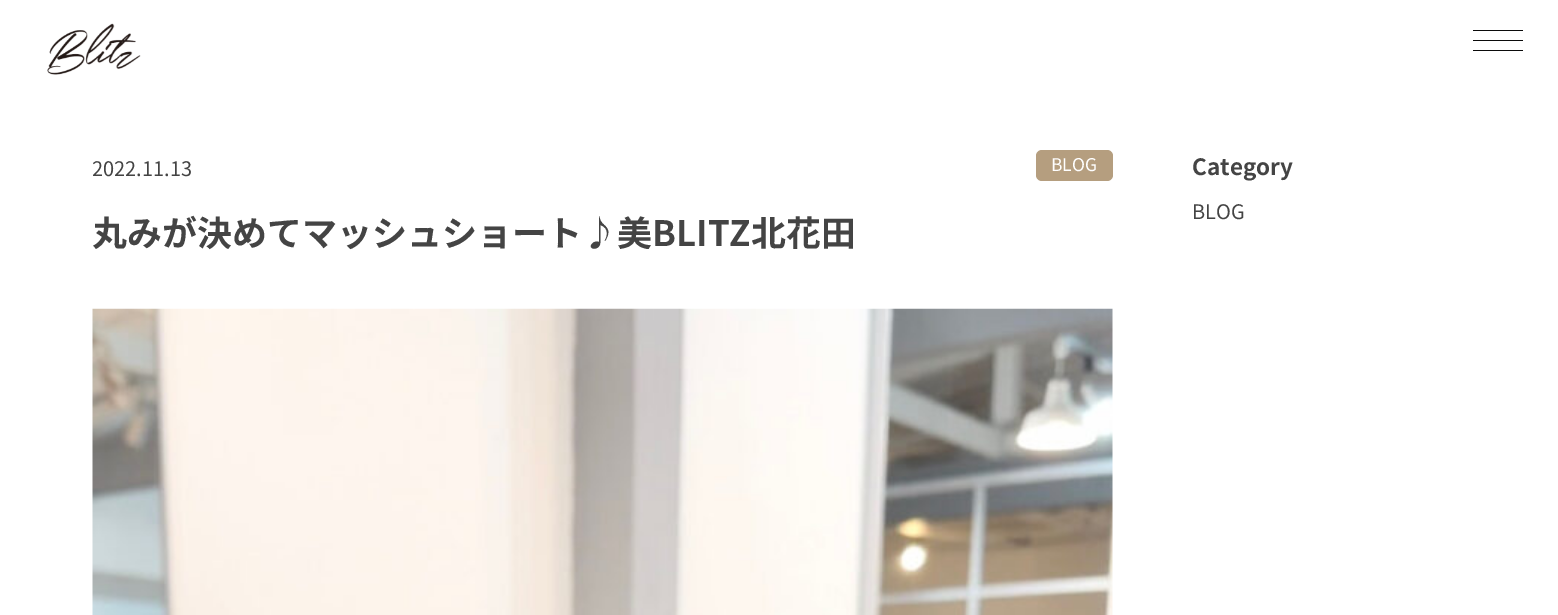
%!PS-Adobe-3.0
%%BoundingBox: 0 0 1558 615
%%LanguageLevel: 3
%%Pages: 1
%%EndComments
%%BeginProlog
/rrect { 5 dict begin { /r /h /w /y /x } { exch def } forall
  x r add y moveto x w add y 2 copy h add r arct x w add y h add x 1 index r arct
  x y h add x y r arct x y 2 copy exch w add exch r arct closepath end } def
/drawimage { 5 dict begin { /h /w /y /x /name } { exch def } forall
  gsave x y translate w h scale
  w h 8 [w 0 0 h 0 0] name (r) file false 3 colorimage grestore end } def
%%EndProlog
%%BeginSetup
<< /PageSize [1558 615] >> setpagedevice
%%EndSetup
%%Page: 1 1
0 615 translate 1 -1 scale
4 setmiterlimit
1 setgray
0 0 1558 615 rectfill
(images/1.raw) 47 23 94 52 drawimage
0.043 setgray
1473 40 50 1 rectfill
1473 30 50 1 rectfill
1473 50 50 1 rectfill
0.71 0.62 0.498 setrgbcolor
1036 150 77 31 6 rrect fill
(images/2.raw) 92 308 1021 307 drawimage
/NotoSansCJKJP-Regular [20 0 0 -20 0 0] selectfont
0.267 setgray
92 176 moveto (2022.11.13) show
/NotoSansCJKJP-Regular [17.5 0 0 -17.5 0 0] selectfont
1 setgray
1051 171 moveto (BLOG) show
/NotoSansCJKJP-Bold [35 0 0 -35 0 0] selectfont
0.267 setgray
92 246 moveto (丸みが決めてマッシュショート♪美BLITZ北花田) show
/NotoSansCJKJP-Bold [22.5 0 0 -22.5 0 0] selectfont
1192 175 moveto (Category) show
/NotoSansCJKJP-Regular [20 0 0 -20 0 0] selectfont
1192 219 moveto (BLOG) show
showpage
%%EOF
